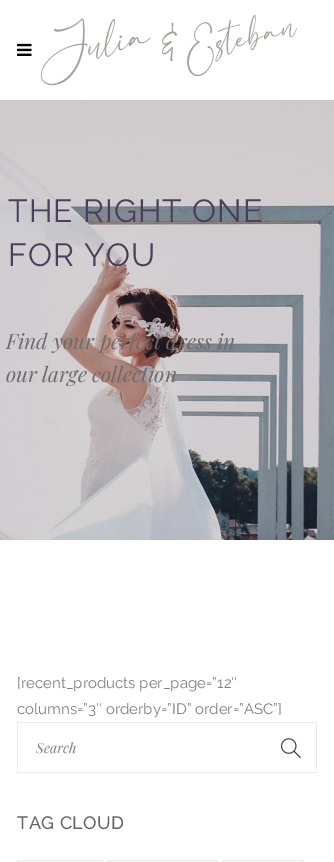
%!PS-Adobe-3.0
%%BoundingBox: 0 0 334 862
%%LanguageLevel: 3
%%Pages: 1
%%EndComments
%%BeginProlog
/drawimage { 5 dict begin { /h /w /y /x /name } { exch def } forall
  gsave x y translate w h scale
  w h 8 [w 0 0 h 0 0] name (r) file false 3 colorimage grestore end } def
%%EndProlog
%%BeginSetup
<< /PageSize [334 862] >> setpagedevice
%%EndSetup
%%Page: 1 1
0 862 translate 1 -1 scale
4 setmiterlimit
1 setgray
0 0 334 862 rectfill
(images/1.raw) 17 43 15 13 drawimage
(images/2.raw) 40 14 257 72 drawimage
(images/3.raw) 0 100 334 440 drawimage
0.922 setgray
17 722 300 1 rectfill
17 772 250 1 rectfill
17 722 1 51 rectfill
316 722 1 51 rectfill
266 772 51 1 rectfill
(images/4.raw) 281 738 20 21 drawimage
17.5 860.5 85 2 rectstroke
107.5 860.5 110 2 rectstroke
222.5 860.5 81 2 rectstroke
/Raleway-Thin [32 0 0 -32 0 0] selectfont
0.29 0.243 0.353 setrgbcolor
8 222 moveto 1 0 (THE RIGHT ONE) ashow
8 266 moveto 1 0 (FOR YOU) ashow
/PlayfairDisplay-Italic [21 0 0 -21 0 0] selectfont
0.427 0.42 0.42 setrgbcolor
6 349 moveto (Find your perfect dress in) show
6 382 moveto (our large collection) show
/Raleway-Thin [15 0 0 -15 0 0] selectfont
0.502 setgray
17 688 moveto ([recent_products per_page=”12″) show
17 714 moveto (columns=”3″ orderby=”ID” order=”ASC”]) show
/PlayfairDisplay-Italic [14 0 0 -14 0 0] selectfont
36 753 moveto (Search) show
/Raleway-Medium [18 0 0 -18 0 0] selectfont
0.396 setgray
17 829 moveto 0.5 0 (TAG CLOUD) ashow
showpage
%%EOF
